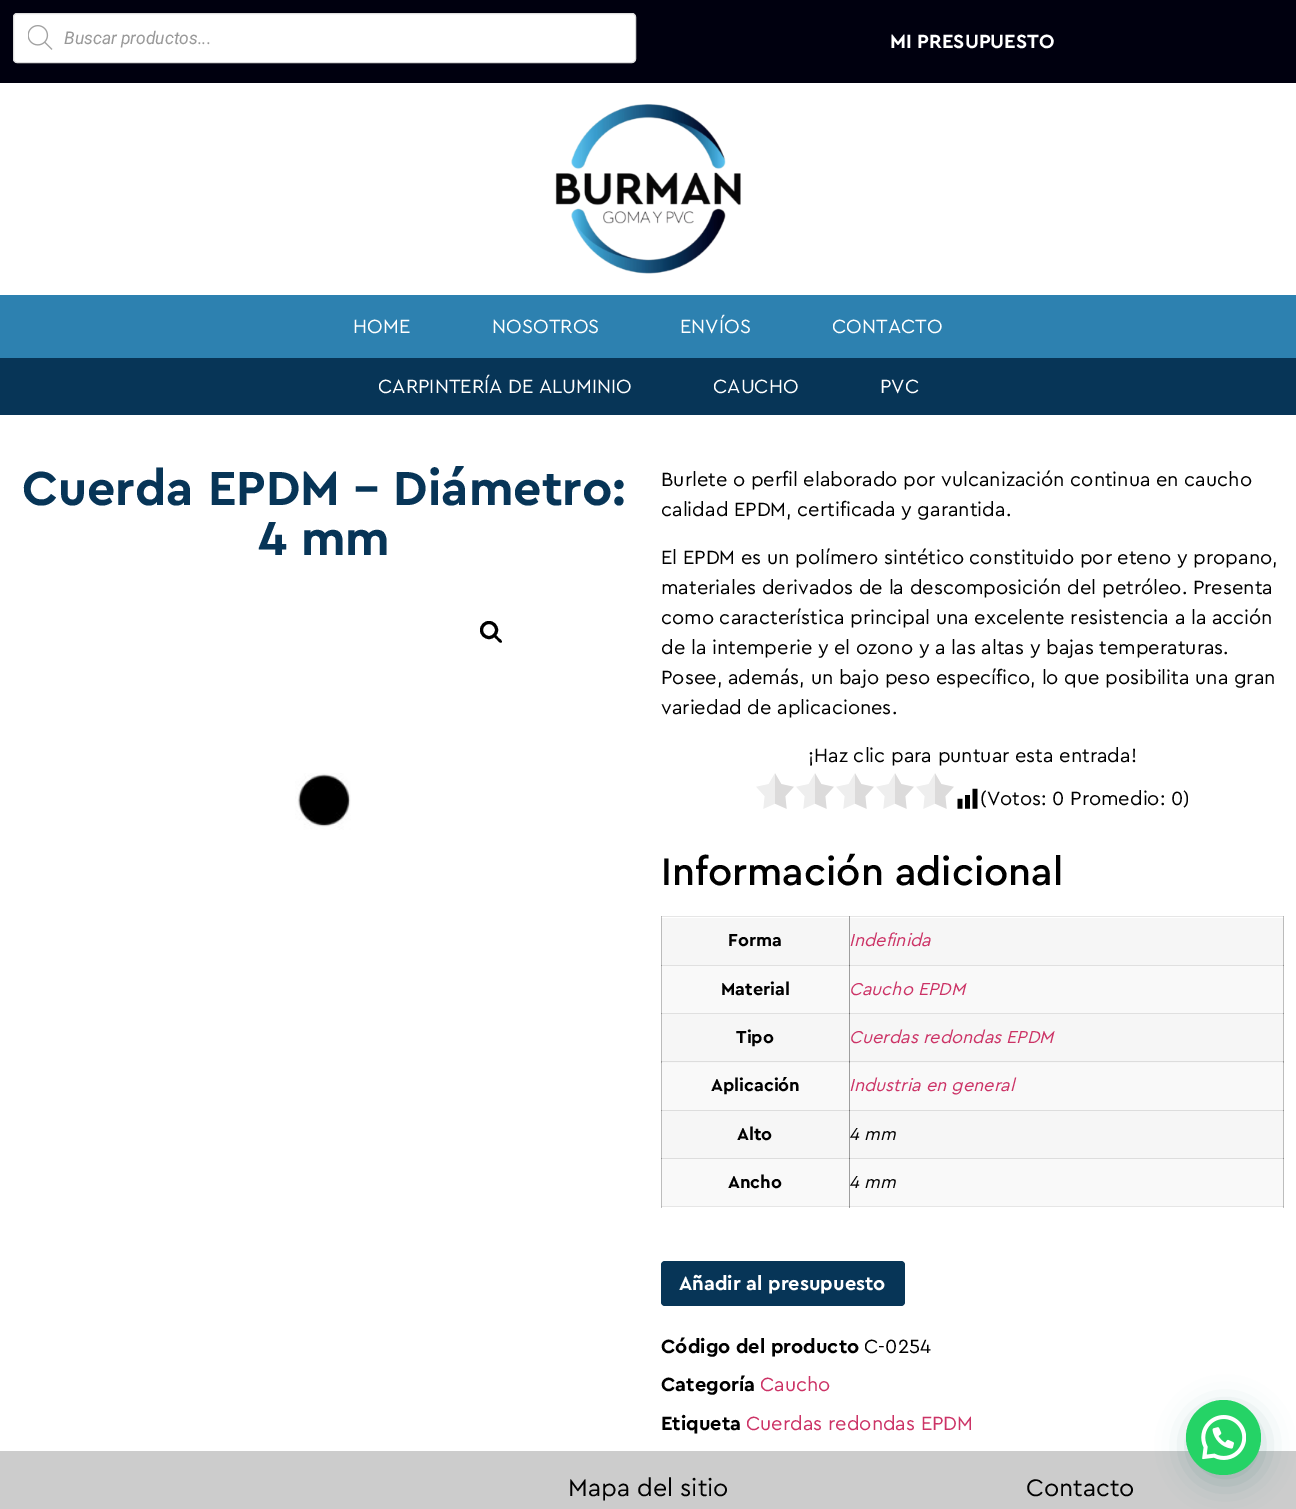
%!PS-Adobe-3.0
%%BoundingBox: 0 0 1296 1509
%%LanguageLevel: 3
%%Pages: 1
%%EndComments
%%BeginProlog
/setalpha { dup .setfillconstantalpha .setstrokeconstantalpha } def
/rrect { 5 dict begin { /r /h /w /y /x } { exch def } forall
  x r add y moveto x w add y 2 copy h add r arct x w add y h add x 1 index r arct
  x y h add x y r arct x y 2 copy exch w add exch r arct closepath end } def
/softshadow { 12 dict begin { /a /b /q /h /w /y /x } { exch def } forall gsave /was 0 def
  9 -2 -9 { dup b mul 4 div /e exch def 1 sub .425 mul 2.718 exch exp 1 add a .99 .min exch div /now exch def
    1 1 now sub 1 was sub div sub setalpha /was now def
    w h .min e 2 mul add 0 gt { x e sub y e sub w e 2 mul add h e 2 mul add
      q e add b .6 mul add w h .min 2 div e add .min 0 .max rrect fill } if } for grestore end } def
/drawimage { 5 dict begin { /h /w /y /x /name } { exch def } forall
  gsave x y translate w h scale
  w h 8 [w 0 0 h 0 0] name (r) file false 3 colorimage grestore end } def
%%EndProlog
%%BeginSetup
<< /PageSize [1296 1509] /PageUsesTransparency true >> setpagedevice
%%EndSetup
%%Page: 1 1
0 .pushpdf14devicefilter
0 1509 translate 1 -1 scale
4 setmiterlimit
1 setgray
0 0 1296 1509 rectfill
0.753 setgray
661 916 1 2 rectfill
0.627 setgray
849 916 1 2 rectfill
0.753 setgray
1283 916 1 2 rectfill
661 1207 1 1 rectfill
0.902 setgray
661 1206 623 1 rectfill
0.702 setgray
661 1206 1 1 rectfill
0.627 setgray
849 1207 1 1 rectfill
0.545 setgray
849 1206 1 1 rectfill
0.753 setgray
1283 1207 1 1 rectfill
0.678 setgray
1283 1206 1 1 rectfill
0 0 0.059 setrgbcolor
0 0 1296 83 rectfill
1 setgray
13.5 13.5 622 49 3.5 rrect gsave fill grestore
0.867 setgray
stroke
(images/1.raw) 28 25 25 25 drawimage
(images/2.raw) 555 104 186 170 drawimage
0.176 0.506 0.69 setrgbcolor
0 295 1296 63 rectfill
0.027 0.208 0.341 setrgbcolor
0 358 1296 57 rectfill
0 setgray
3 setlinewidth
newpath 489 630 7.5 0 360 arc closepath stroke
newpath 494.5 635 moveto 495.5 634 498 637 498.5 638 curveto 499.5 638.5 503 641 501.5 642.5 curveto 500 643.5 497.5 640.5 497 639.5 curveto 496 639 493 636.5 494.5 635 curveto closepath fill
(images/3.raw) 295 773 56 57 drawimage
(images/4.raw) 756 773 198 36 drawimage
(images/5.raw) 957 788 21 21 drawimage
0.902 setgray
661 916 623 1 rectfill
0.702 setgray
661 916 1 1 rectfill
0.604 setgray
849 916 1 1 rectfill
0.702 setgray
1283 916 1 1 rectfill
0.965 setgray
662 918 187 47 rectfill
0.733 setgray
661 918 1 47 rectfill
0.965 setgray
850 918 433 47 rectfill
0.62 setgray
849 918 1 47 rectfill
0.733 setgray
1283 918 1 47 rectfill
0.976 setgray
662 966 187 47 rectfill
0.878 setgray
661 965 623 1 rectfill
0.741 setgray
661 965 1 49 rectfill
0.584 setgray
661 965 1 1 rectfill
0.878 setgray
661 1013 188 1 rectfill
0.584 setgray
661 1013 1 1 rectfill
0.976 setgray
850 966 433 47 rectfill
0.624 setgray
849 965 1 49 rectfill
0.467 setgray
849 965 1 1 rectfill
0.878 setgray
849 1013 435 1 rectfill
0.741 setgray
1283 965 1 49 rectfill
0.561 setgray
1283 965 1 1 rectfill
0.467 setgray
849 1013 1 1 rectfill
0.561 setgray
1283 1013 1 1 rectfill
0.965 setgray
662 1014 187 49 rectfill
0.733 setgray
661 1014 1 49 rectfill
0.867 setgray
661 1061 188 1 rectfill
0.62 setgray
661 1061 1 2 rectfill
0.58 setgray
661 1061 1 1 rectfill
0.965 setgray
850 1014 433 49 rectfill
0.62 setgray
849 1014 1 49 rectfill
0.867 setgray
849 1061 435 1 rectfill
0.733 setgray
1283 1014 1 49 rectfill
0.533 setgray
849 1061 1 2 rectfill
0.467 setgray
849 1061 1 1 rectfill
0.62 setgray
1283 1061 1 2 rectfill
0.557 setgray
1283 1061 1 1 rectfill
0.976 setgray
662 1063 187 47 rectfill
0.741 setgray
661 1063 1 47 rectfill
0.976 setgray
850 1063 433 47 rectfill
0.624 setgray
849 1063 1 47 rectfill
0.741 setgray
1283 1063 1 47 rectfill
0.965 setgray
662 1111 187 47 rectfill
0.867 setgray
661 1110 623 1 rectfill
0.733 setgray
661 1110 1 49 rectfill
0.58 setgray
661 1110 1 1 rectfill
0.867 setgray
661 1158 188 1 rectfill
0.58 setgray
661 1158 1 1 rectfill
0.965 setgray
850 1111 433 47 rectfill
0.62 setgray
849 1110 1 49 rectfill
0.467 setgray
849 1110 1 1 rectfill
0.867 setgray
849 1158 435 1 rectfill
0.733 setgray
1283 1110 1 49 rectfill
0.557 setgray
1283 1110 1 1 rectfill
0.467 setgray
849 1158 1 1 rectfill
0.557 setgray
1283 1158 1 1 rectfill
0.976 setgray
662 1159 187 47 rectfill
0.741 setgray
661 1159 1 47 rectfill
0.976 setgray
850 1159 433 47 rectfill
0.624 setgray
849 1159 1 47 rectfill
0.741 setgray
1283 1159 1 47 rectfill
0.027 0.208 0.341 setrgbcolor
661 1261 244 45 4 rrect fill
0.8 setgray
0 1451 1296 58 rectfill
0.027 0.369 0.329 setrgbcolor
1188 1408 75 75 37.5 15 0.24 softshadow
0.145 0.827 0.4 setrgbcolor
newpath 1223.5 1437.5 37.5 0 360 arc closepath fill
(images/6.raw) 1201 1415 45 45 drawimage
/Roboto-Italic [17.5 0 0 -17.5 0 0] selectfont
0.6 setgray
64 44 moveto (Buscar productos...) show
/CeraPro-Bold [20 0 0 -20 0 0] selectfont
1 setgray
890 48 moveto (MI PRESUPUESTO) show
/CeraPro-Regular [20 0 0 -20 0 0] selectfont
353 333 moveto (HOME) show
492 333 moveto (NOSOTROS) show
680 333 moveto (ENVÍOS) show
832 333 moveto (CONTACTO) show
378 393 moveto (CARPINTERÍA DE ALUMINIO) show
713 393 moveto (CAUCHO) show
880 393 moveto (PVC) show
/CeraPro-Bold [50 0 0 -50 0 0] selectfont
0.027 0.208 0.341 setrgbcolor
22 505 moveto (Cuerda EPDM – Diámetro:) show
258 555 moveto (4 mm) show
/CeraPro-Regular [20 0 0 -20 0 0] selectfont
0 setgray
661 486 moveto (Burlete o perfil elaborado por vulcanización continua en caucho) show
661 516 moveto (calidad EPDM, certificada y garantida.) show
661 564 moveto (El EPDM es un polímero sintético constituido por eteno y propano,) show
661 594 moveto (materiales derivados de la descomposición del petróleo. Presenta) show
661 624 moveto (como característica principal una excelente resistencia a la acción) show
661 654 moveto (de la intemperie y el ozono y a las altas y bajas temperaturas.) show
661 684 moveto (Posee, además, un bajo peso específico, lo que posibilita una gran) show
661 714 moveto (variedad de aplicaciones.) show
808 762 moveto (¡Haz clic para puntuar esta entrada!) show
980 805 moveto (\(Votos: 0 Promedio: 0\)) show
/CeraPro-Medium [40 0 0 -40 0 0] selectfont
661 885 moveto (Información adicional) show
/CeraPro-Bold [18 0 0 -18 0 0] selectfont
728 946 moveto (Forma) show
/CeraPro-Italic [18 0 0 -18 0 0] selectfont
0.8 0.2 0.4 setrgbcolor
849 946 moveto (Indefinida) show
/CeraPro-Bold [18 0 0 -18 0 0] selectfont
0 setgray
721 995 moveto (Material) show
/CeraPro-Italic [18 0 0 -18 0 0] selectfont
0.8 0.2 0.4 setrgbcolor
849 995 moveto (Caucho EPDM) show
/CeraPro-Bold [18 0 0 -18 0 0] selectfont
0 setgray
736 1043 moveto (Tipo) show
/CeraPro-Italic [18 0 0 -18 0 0] selectfont
0.8 0.2 0.4 setrgbcolor
849 1043 moveto (Cuerdas redondas EPDM) show
/CeraPro-Bold [18 0 0 -18 0 0] selectfont
0 setgray
711 1091 moveto (Aplicación) show
/CeraPro-Italic [18 0 0 -18 0 0] selectfont
0.8 0.2 0.4 setrgbcolor
849 1091 moveto (Industria en general) show
/CeraPro-Bold [18 0 0 -18 0 0] selectfont
0 setgray
737 1140 moveto (Alto) show
/CeraPro-Italic [18 0 0 -18 0 0] selectfont
849 1140 moveto (4 mm) show
/CeraPro-Bold [18 0 0 -18 0 0] selectfont
728 1188 moveto (Ancho) show
/CeraPro-Italic [18 0 0 -18 0 0] selectfont
849 1188 moveto (4 mm) show
/CeraPro-Bold [20 0 0 -20 0 0] selectfont
1 setgray
679 1290 moveto (Añadir al presupuesto) show
0 setgray
661 1353 moveto (Código del producto) show
/CeraPro-Regular [20 0 0 -20 0 0] selectfont
864 1353 moveto (C-0254) show
/CeraPro-Bold [20 0 0 -20 0 0] selectfont
661 1391 moveto (Categoría) show
/CeraPro-Regular [20 0 0 -20 0 0] selectfont
0.8 0.2 0.4 setrgbcolor
760 1391 moveto (Caucho) show
/CeraPro-Bold [20 0 0 -20 0 0] selectfont
0 setgray
661 1430 moveto (Etiqueta) show
/CeraPro-Regular [20 0 0 -20 0 0] selectfont
0.8 0.2 0.4 setrgbcolor
746 1430 moveto (Cuerdas redondas EPDM) show
/CeraPro-Regular [25 0 0 -25 0 0] selectfont
0 setgray
568 1496 moveto (Mapa del sitio) show
1026 1496 moveto (Contacto) show
.poppdf14devicefilter showpage
%%EOF
